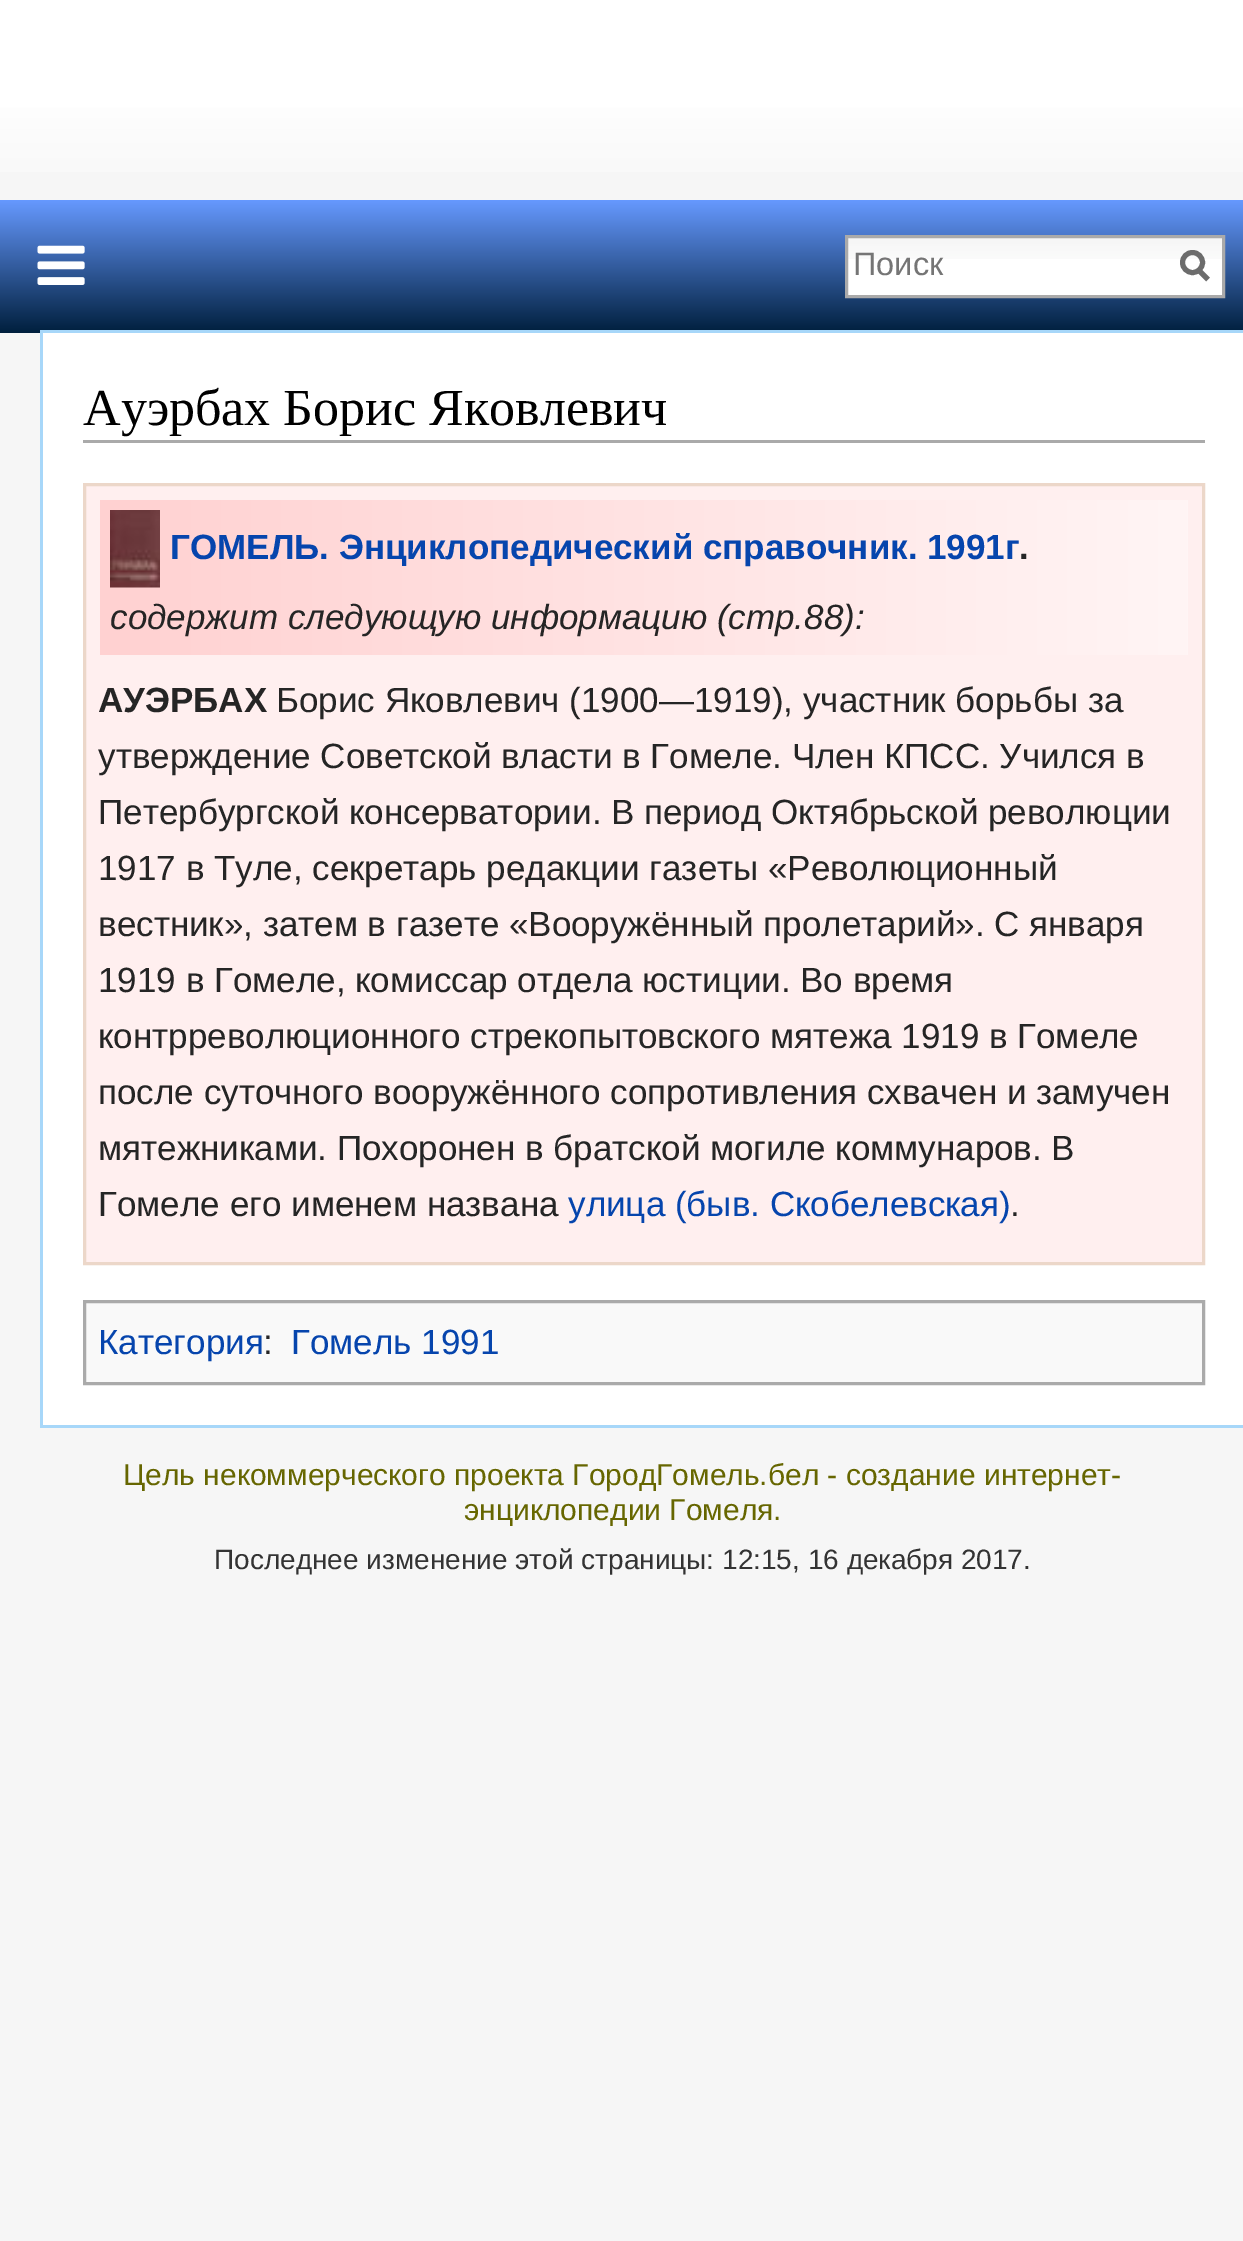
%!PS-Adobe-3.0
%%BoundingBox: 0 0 1243 2241
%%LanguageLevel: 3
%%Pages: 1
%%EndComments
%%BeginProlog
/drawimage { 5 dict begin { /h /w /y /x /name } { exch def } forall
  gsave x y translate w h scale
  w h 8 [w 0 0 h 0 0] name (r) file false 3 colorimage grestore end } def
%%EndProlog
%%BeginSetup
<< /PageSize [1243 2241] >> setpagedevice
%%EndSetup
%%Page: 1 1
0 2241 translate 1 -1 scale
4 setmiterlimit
0.965 setgray
0 0 1243 2241 rectfill
gsave newpath 0 0 moveto 1243 0 lineto 1243 172 lineto 0 172 lineto closepath clip newpath
<< /ShadingType 2 /ColorSpace /DeviceRGB /Coords [623 0 623 200] /Extend [true true] /Function << /FunctionType 3 /Domain [0 1] /Functions [<< /FunctionType 2 /Domain [0 1] /C0 [1 1 1] /C1 [1 1 1] /N 1 >> << /FunctionType 2 /Domain [0 1] /C0 [1 1 1] /C1 [0.965 0.965 0.965] /N 1 >>] /Bounds [0.5] /Encode [0 1 0 1] >> >> shfill grestore
gsave newpath 0 200 moveto 1243 200 lineto 1243 333 lineto 0 333 lineto closepath clip newpath
<< /ShadingType 2 /ColorSpace /DeviceRGB /Coords [623 200 623 333] /Extend [true true] /Function << /FunctionType 2 /Domain [0 1] /C0 [0.4 0.6 1] /C1 [0 0.122 0.239] /N 1 >> >> shfill grestore
(images/1.raw) 37 245 48 40 drawimage
1 setgray
848 259 374 36 rectfill
(images/2.raw) 848 238 374 21 drawimage
0.667 setgray
3 setlinewidth
846.5 236.5 377 60 rectstroke
0.424 setgray
5 setlinewidth
newpath 1208 279.5 moveto 1198 269.5 lineto stroke
newpath 1192.5 262.5 10 0 360 arc closepath stroke
1 setgray
43 333 1200 1092 rectfill
0.655 0.843 0.976 setrgbcolor
40 330 1203 3 rectfill
40 1425 1203 3 rectfill
40 330 3 1098 rectfill
0.667 setgray
83 440 1122 3 rectfill
1 0.937 0.937 setrgbcolor
newpath 84.5 484.5 moveto 1203.5 484.5 lineto 1203.5 1263.5 lineto 84.5 1263.5 lineto closepath gsave fill grestore
0.925 0.843 0.788 setrgbcolor
3 setlinewidth
stroke
gsave newpath 100 500 moveto 1188 500 lineto 1188 655 lineto 100 655 lineto closepath clip newpath
<< /ShadingType 2 /ColorSpace /DeviceRGB /Coords [100 578 1188 578] /Extend [true true] /Function << /FunctionType 2 /Domain [0 1] /C0 [1 0.82 0.82] /C1 [1 0.961 0.961] /N 1 >> >> shfill grestore
(images/3.raw) 110 510 50 78 drawimage
0.976 setgray
newpath 84.5 1301.5 moveto 1203.5 1301.5 lineto 1203.5 1383.5 lineto 84.5 1383.5 lineto closepath gsave fill grestore
0.667 setgray
stroke
/LiberationSans-Regular [32.5 0 0 -32.5 0 0] selectfont
0.459 setgray
853 275 moveto (Поиск) show
/LiberationSerif-Regular [52 0 0 -52 0 0] selectfont
0 setgray
83 425 moveto (Ауэрбах Борис Яковлевич) show
/LiberationSans-Bold [35 0 0 -35 0 0] selectfont
0.024 0.271 0.678 setrgbcolor
170 559 moveto (ГОМЕЛЬ. Энциклопедический справочник. 1991г) show
0.145 setgray
1019 559 moveto (.) show
/LiberationSans-Italic [35 0 0 -35 0 0] selectfont
110 629 moveto (cодержит следующую информацию \(стр.88\):) show
/LiberationSans-Bold [35 0 0 -35 0 0] selectfont
98 712 moveto (АУЭРБАХ) show
/LiberationSans-Regular [35 0 0 -35 0 0] selectfont
276 712 moveto (Борис Яковлевич \(1900—1919\), участник борьбы за) show
98 768 moveto (утверждение Советской власти в Гомеле. Член КПСС. Учился в) show
98 824 moveto (Петербургской консерватории. В период Октябрьской революции) show
98 880 moveto (1917 в Туле, секретарь редакции газеты «Революционный) show
98 936 moveto (вестник», затем в газете «Вооружённый пролетарий». С января) show
98 992 moveto (1919 в Гомеле, комиссар отдела юстиции. Во время) show
98 1048 moveto (контрреволюционного стрекопытовского мятежа 1919 в Гомеле) show
98 1104 moveto (после суточного вооружённого сопротивления схвачен и замучен) show
98 1160 moveto (мятежниками. Похоронен в братской могиле коммунаров. В) show
98 1216 moveto (Гомеле его именем названа) show
0.024 0.271 0.678 setrgbcolor
568 1216 moveto (улица \(быв. Скобелевская\)) show
0.145 setgray
1010 1216 moveto (.) show
0.024 0.271 0.678 setrgbcolor
98 1354 moveto (Категория) show
0.145 setgray
263 1354 moveto (:) show
0.024 0.271 0.678 setrgbcolor
291 1354 moveto (Гомель 1991) show
/LiberationSans-Regular [30 0 0 -30 0 0] selectfont
0.4 0.4 0 setrgbcolor
123 1485 moveto (Цель некоммерческого проекта ГородГомель.бел - создание интернет-) show
464 1520 moveto (энциклопедии Гомеля.) show
/LiberationSans-Regular [28 0 0 -28 0 0] selectfont
0.2 setgray
214 1569 moveto (Последнее изменение этой страницы: 12:15, 16 декабря 2017.) show
showpage
%%EOF
